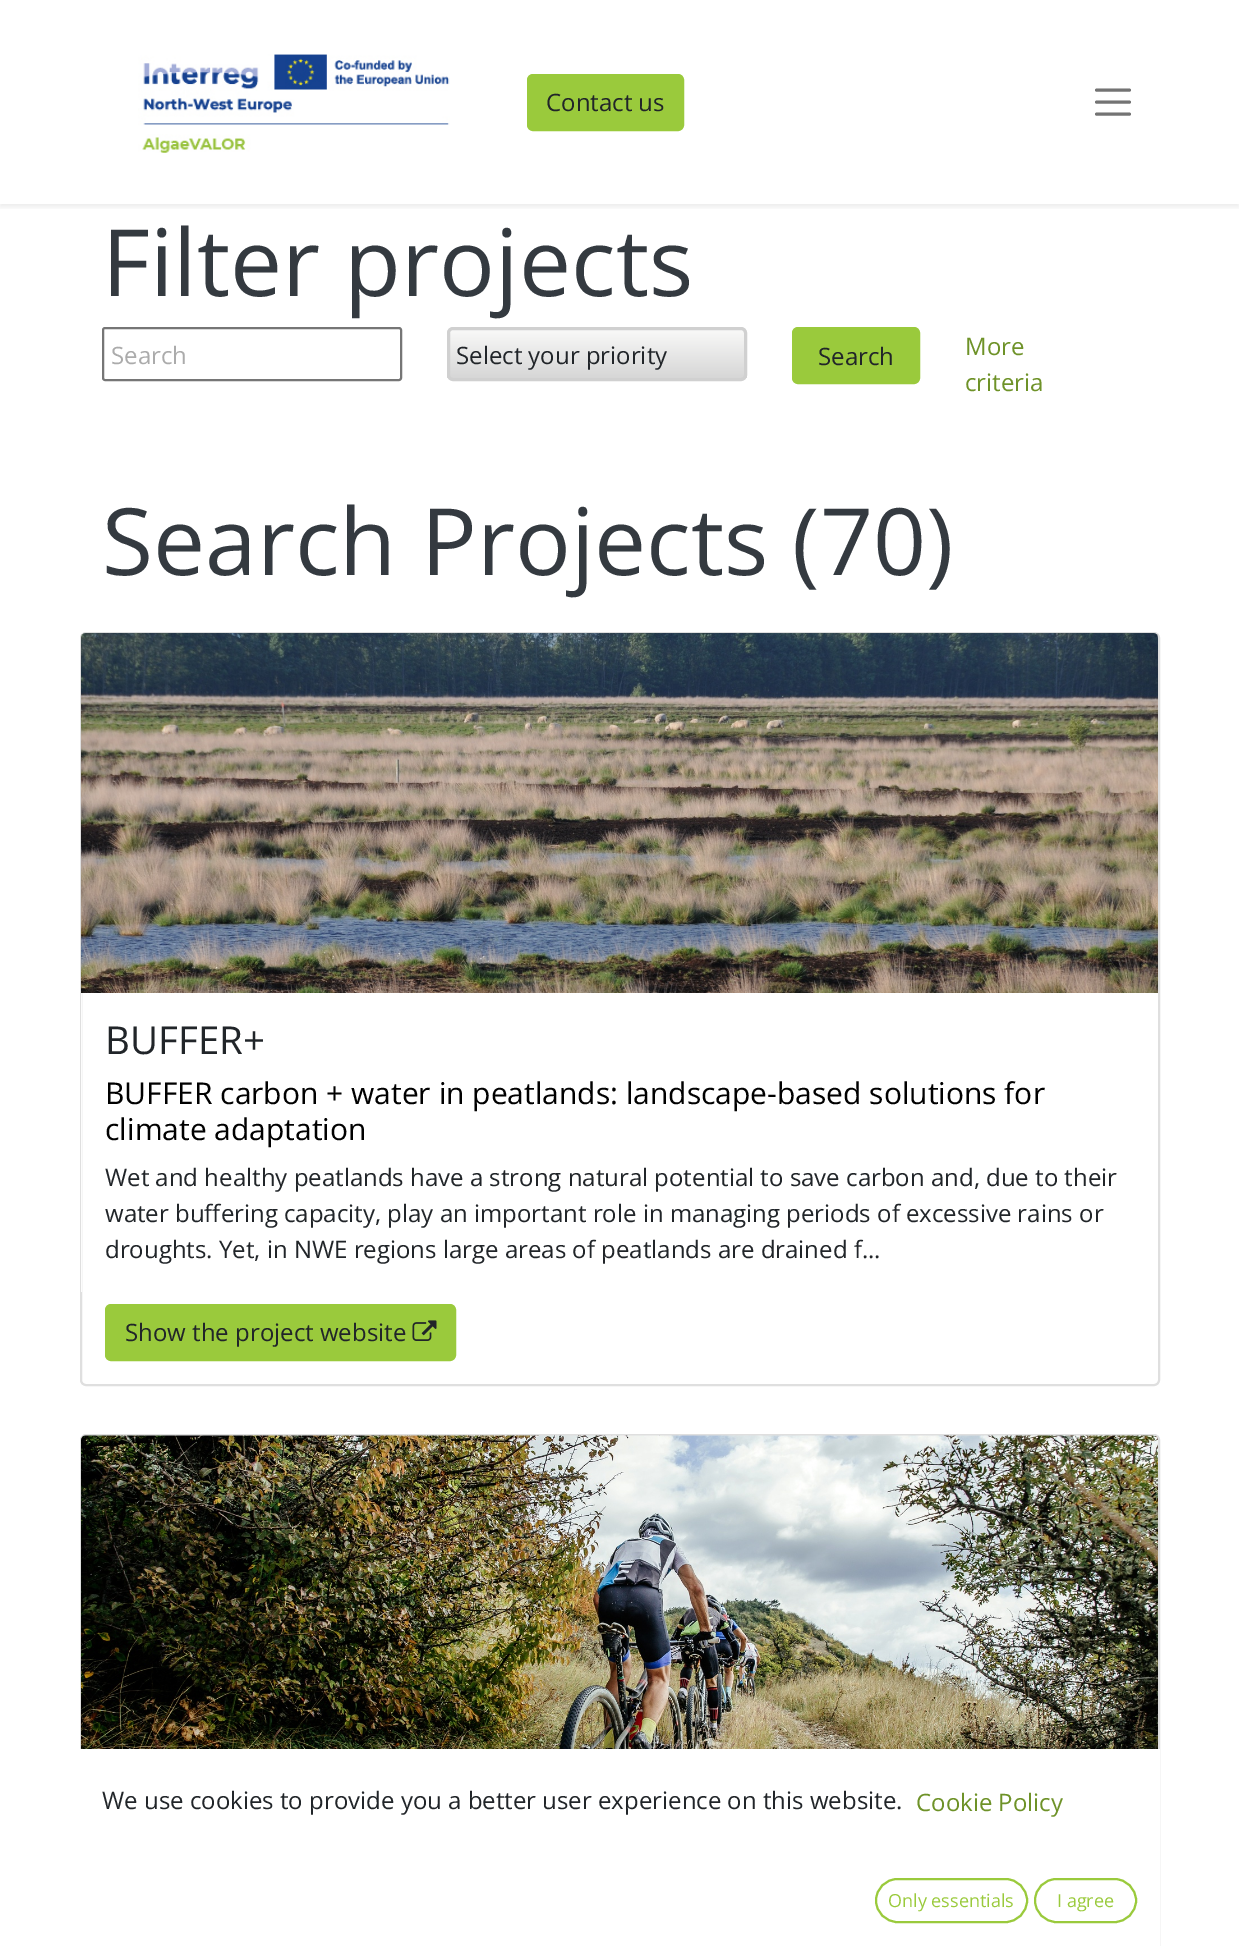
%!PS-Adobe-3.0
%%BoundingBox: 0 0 1239 1946
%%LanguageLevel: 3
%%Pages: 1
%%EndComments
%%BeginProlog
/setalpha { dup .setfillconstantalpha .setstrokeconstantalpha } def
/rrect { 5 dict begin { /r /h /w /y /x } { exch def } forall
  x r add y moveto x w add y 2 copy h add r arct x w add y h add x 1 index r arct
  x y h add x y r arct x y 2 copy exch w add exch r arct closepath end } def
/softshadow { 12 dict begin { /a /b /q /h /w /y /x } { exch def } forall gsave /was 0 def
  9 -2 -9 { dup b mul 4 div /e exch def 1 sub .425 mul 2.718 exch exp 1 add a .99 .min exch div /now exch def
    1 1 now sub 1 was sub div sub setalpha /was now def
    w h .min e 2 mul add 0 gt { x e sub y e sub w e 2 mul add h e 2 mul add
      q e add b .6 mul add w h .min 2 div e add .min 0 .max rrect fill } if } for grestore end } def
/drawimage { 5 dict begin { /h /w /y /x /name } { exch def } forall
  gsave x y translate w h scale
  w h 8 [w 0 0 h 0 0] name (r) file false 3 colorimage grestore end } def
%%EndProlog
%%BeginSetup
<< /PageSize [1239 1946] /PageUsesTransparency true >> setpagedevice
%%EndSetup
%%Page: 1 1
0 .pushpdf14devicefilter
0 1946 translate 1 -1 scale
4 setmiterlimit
1 setgray
0 0 1239 1946 rectfill
gsave
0 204 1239 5 rectclip
0 setgray
0 3 1239 204 0 3 0.07 softshadow
grestore
(images/1.raw) 138 54 312 99 drawimage
0.604 0.792 0.235 setrgbcolor
528 75 155 55 5 rrect gsave fill grestore
2 setlinewidth
stroke
0.451 setgray
3 setlinewidth
1 setlinecap
newpath 1096.5 90 moveto 1129.5 90 lineto 1096.5 102 moveto 1129.5 102 lineto 1096.5 114 moveto 1129.5 114 lineto stroke
0.463 setgray
2 setlinewidth
0 setlinecap
103 328 298 52 2 rrect stroke
gsave
447 327 300 54 6 rrect clip newpath
gsave newpath 447 330 moveto 747 330 lineto 747 378 lineto 447 378 lineto closepath clip newpath
<< /ShadingType 2 /ColorSpace /DeviceRGB /Coords [597 330 597 378] /Extend [true true] /Function << /FunctionType 2 /Domain [0 1] /C0 [0.976 0.976 0.973] /C1 [0.839 0.839 0.839] /N 1 >> >> shfill grestore
grestore
0.816 setgray
3 setlinewidth
448.5 328.5 297 51 4.5 rrect stroke
0.604 0.792 0.235 setrgbcolor
793 328 126 55 5 rrect gsave fill grestore
2 setlinewidth
stroke
0.875 setgray
81 633 1078 752 5 rrect stroke
(images/2.raw) 81 633 1077 360 drawimage
0.9 setalpha
1 setgray
81 993 1 299 rectfill
1 setalpha
0.604 0.792 0.235 setrgbcolor
106 1305 349 55 5 rrect gsave fill grestore
stroke
(images/3.raw) 412 1320 25 21 drawimage
0.875 setgray
81 1435 1078 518 5 rrect stroke
(images/4.raw) 81 1435 1077 314 drawimage
1 setgray
80 1749 1080 197 rectfill
0.604 0.792 0.235 setrgbcolor
876 1879 151 43 21.5 rrect stroke
1035 1879 101 43 21.5 rrect stroke
/OpenSans-Regular [24 0 0 -24 0 0] selectfont
0.129 0.145 0.161 setrgbcolor
546 111 moveto (Contact us) show
/OpenSans-Regular [93 0 0 -93 0 0] selectfont
0.204 0.227 0.251 setrgbcolor
102 296 moveto (Filter projects) show
/OpenSans-Regular [24 0 0 -24 0 0] selectfont
0.671 setgray
111 364 moveto (Search) show
0.129 0.145 0.161 setrgbcolor
456 364 moveto (Select your priority) show
818 365 moveto (Search) show
0.431 0.573 0.157 setrgbcolor
965 355 moveto (More) show
965 391 moveto (criteria) show
/OpenSans-Regular [93 0 0 -93 0 0] selectfont
0.204 0.227 0.251 setrgbcolor
102 575 moveto (Search Projects \(70\)) show
/OpenSans-Regular [38.5 0 0 -38.5 0 0] selectfont
0.129 0.145 0.161 setrgbcolor
105 1054 moveto (BUFFER+) show
/OpenSans-Regular [30 0 0 -30 0 0] selectfont
0 setgray
105 1104 moveto (BUFFER carbon + water in peatlands: landscape-based solutions for) show
105 1140 moveto (climate adaptation) show
/OpenSans-Regular [24 0 0 -24 0 0] selectfont
0.129 0.145 0.161 setrgbcolor
105 1186 moveto (Wet and healthy peatlands have a strong natural potential to save carbon and, due to their) show
105 1222 moveto (water buffering capacity, play an important role in managing periods of excessive rains or) show
105 1258 moveto (droughts. Yet, in NWE regions large areas of peatlands are drained f...) show
125 1341 moveto (Show the project website) show
102 1809 moveto (We use cookies to provide you a better user experience on this website.) show
0.431 0.573 0.157 setrgbcolor
916 1811 moveto (Cookie Policy) show
/OpenSans-Regular [18 0 0 -18 0 0] selectfont
0.604 0.792 0.235 setrgbcolor
888 1907 moveto (Only essentials) show
1057 1907 moveto (I agree) show
.poppdf14devicefilter showpage
%%EOF
